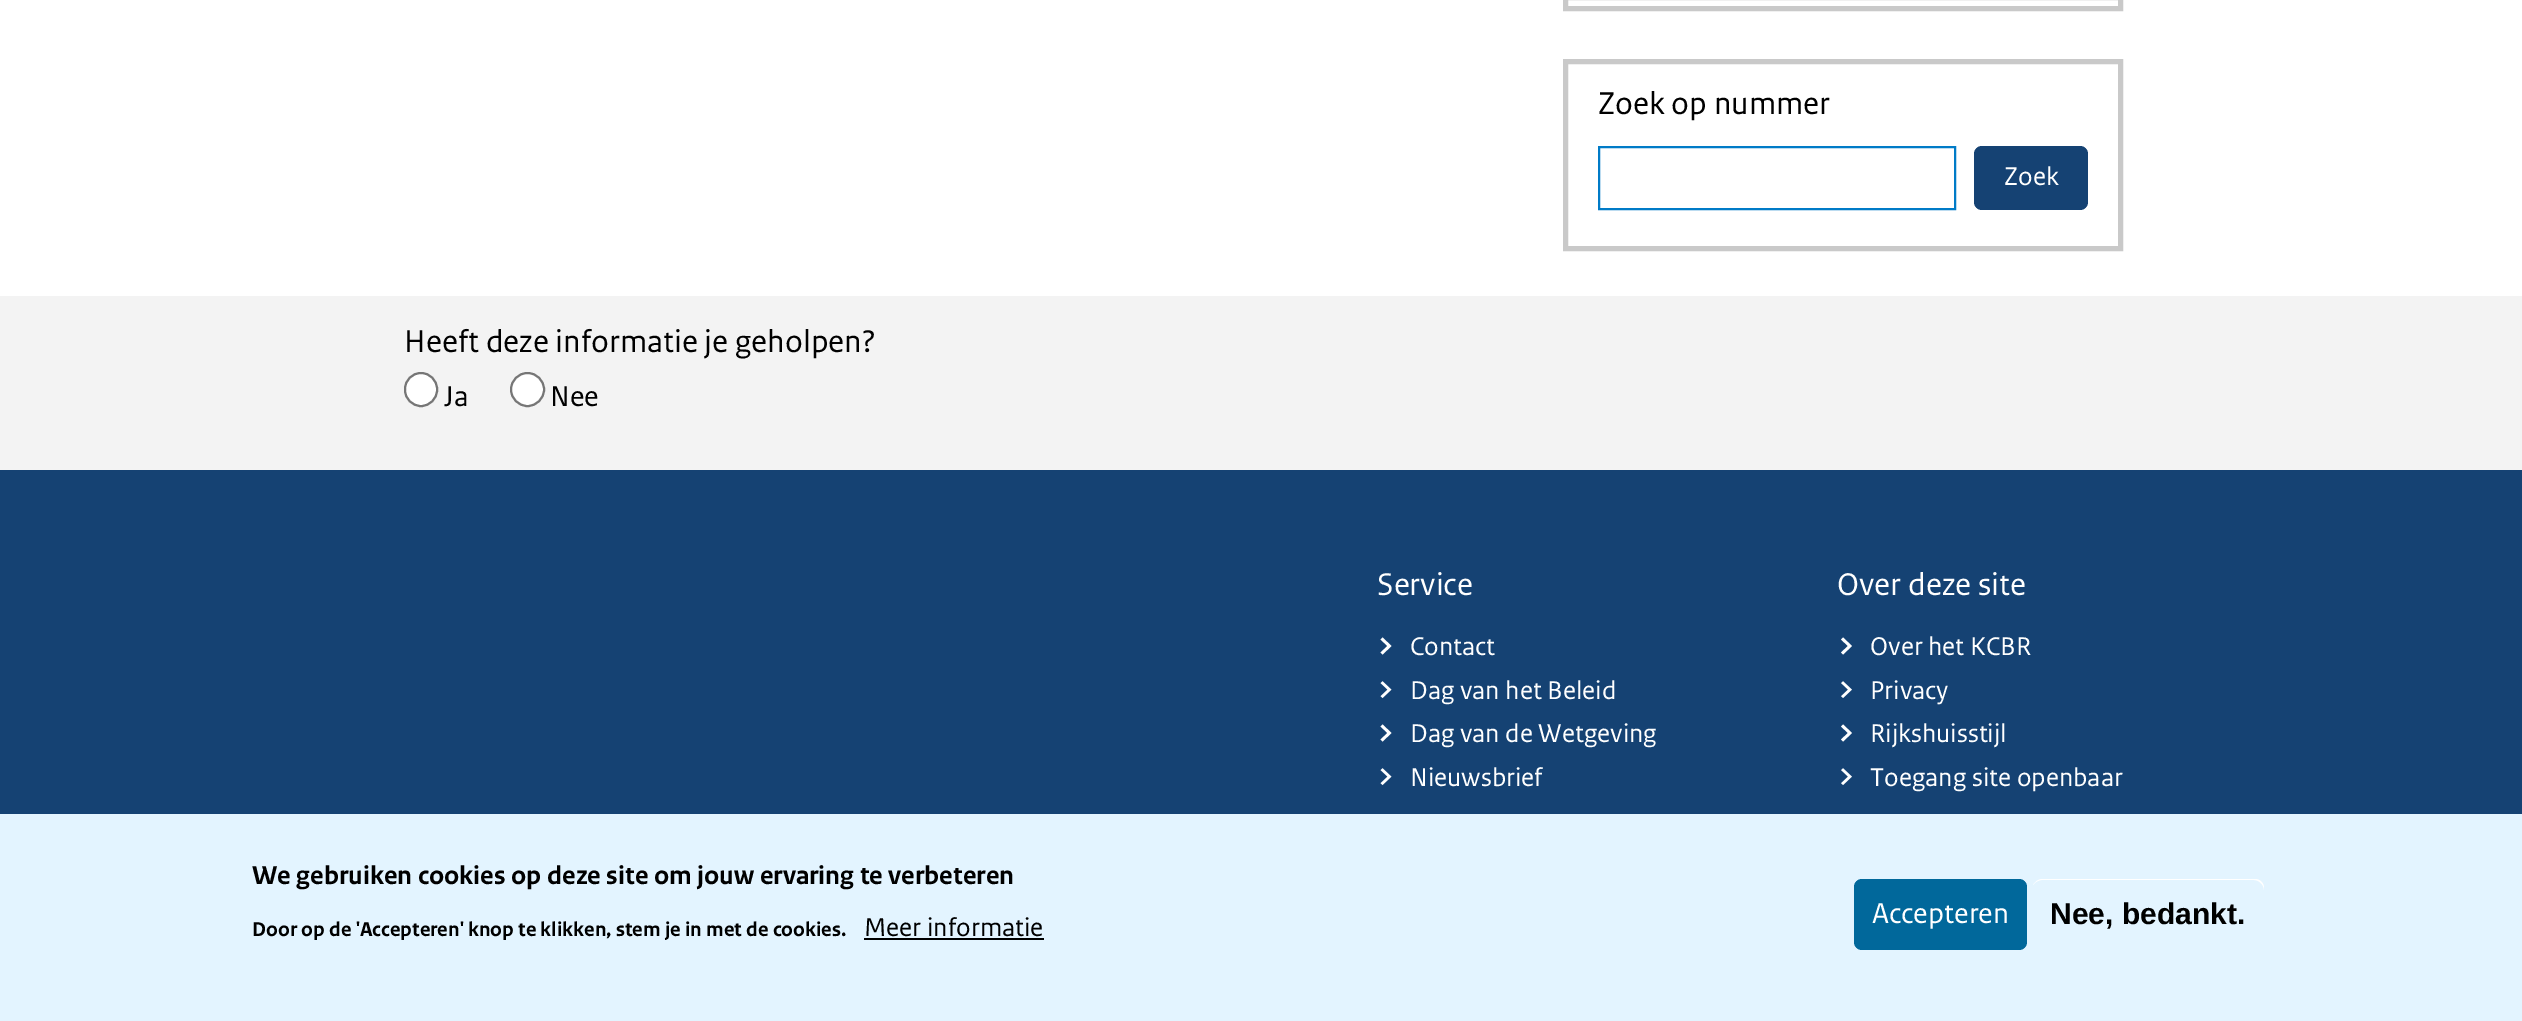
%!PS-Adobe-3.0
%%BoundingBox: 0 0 2522 1021
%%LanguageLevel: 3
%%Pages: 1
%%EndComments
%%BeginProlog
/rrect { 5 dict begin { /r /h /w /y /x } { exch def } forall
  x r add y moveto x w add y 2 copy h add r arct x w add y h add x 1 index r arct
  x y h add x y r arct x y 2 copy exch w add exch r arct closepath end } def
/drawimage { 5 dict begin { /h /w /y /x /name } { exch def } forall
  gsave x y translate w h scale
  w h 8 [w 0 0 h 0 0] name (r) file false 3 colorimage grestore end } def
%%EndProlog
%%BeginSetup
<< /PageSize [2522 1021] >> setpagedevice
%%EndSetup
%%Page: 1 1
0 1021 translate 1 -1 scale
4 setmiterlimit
1 setgray
0 0 2522 1021 rectfill
0.788 setgray
5 setlinewidth
1565.5 -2.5 555 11 rectstroke
1565.5 61.5 555 187 rectstroke
0 0.482 0.78 setrgbcolor
2 setlinewidth
1599 147 356 62 rectstroke
0.082 0.259 0.451 setrgbcolor
1974 146 114 64 8 rrect fill
0.953 setgray
0 296 2522 174 rectfill
1 setgray
405 373 32 33 16 rrect gsave fill grestore
0.463 setgray
stroke
1 setgray
newpath 527.5 389.5 16.5 0 360 arc closepath gsave fill grestore
0.463 setgray
stroke
0.082 0.259 0.451 setrgbcolor
0 470 2522 344 rectfill
1 setgray
newpath 1382.5 637.5 moveto 1380.5 639.5 lineto 1387.5 646 lineto 1380.5 652.5 lineto 1382.5 654.5 lineto 1391.5 646 lineto closepath fill
(images/1.raw) 1380 681 12 18 drawimage
newpath 1382.5 724.5 moveto 1380.5 726.5 lineto 1387.5 733 lineto 1380.5 739.5 lineto 1382.5 741.5 lineto 1391.5 733 lineto closepath fill
(images/1.raw) 1380 768 12 18 drawimage
newpath 1843 637.5 moveto 1841 639.5 lineto 1848 646 lineto 1841 652.5 lineto 1843 654.5 lineto 1852 646 lineto closepath fill
(images/2.raw) 1841 681 11 17 drawimage
newpath 1843 724.5 moveto 1841 726.5 lineto 1848 733 lineto 1841 739.5 lineto 1843 741.5 lineto 1852 733 lineto closepath fill
(images/2.raw) 1841 768 11 17 drawimage
0.89 0.957 1 setrgbcolor
0 814 2522 207 rectfill
0 setgray
864 938 180 2 rectfill
0.004 0.408 0.608 setrgbcolor
1854 879 173 71 8 rrect fill
1 setgray
newpath 2042 880 moveto 2254 880 lineto 2259 880 2264 885 2264 890 curveto 2264 888 lineto 2264 883 2260 879 2255 879 curveto 2042 879 lineto 2038 879 2035 882 2033 885 curveto 2035 882 2039 880 2042 880 curveto closepath fill
/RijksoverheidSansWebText-Regular [33 0 0 -33 0 0] selectfont
0 setgray
1598 114 moveto (Zoek op nummer) show
/RijksoverheidSansWebText-Regular [27 0 0 -27 0 0] selectfont
1 setgray
2004 185 moveto (Zoek) show
/RijksoverheidSansWebText-Regular [33 0 0 -33 0 0] selectfont
0 setgray
404 352 moveto (Heeft deze informatie je geholpen?) show
/RijksoverheidSansWebText-Regular [30 0 0 -30 0 0] selectfont
444 406 moveto (Ja) show
550 406 moveto (Nee) show
/RijksoverheidSansWebText-Regular [33 0 0 -33 0 0] selectfont
1 setgray
1377 595 moveto (Service) show
/RijksoverheidSansWebText-Regular [27 0 0 -27 0 0] selectfont
1410 655 moveto (Contact) show
1410 699 moveto (Dag van het Beleid) show
1410 742 moveto (Dag van de Wetgeving) show
1410 786 moveto (Nieuwsbrief) show
/RijksoverheidSansWebText-Regular [33 0 0 -33 0 0] selectfont
1837 595 moveto (Over deze site) show
/RijksoverheidSansWebText-Regular [27 0 0 -27 0 0] selectfont
1870 655 moveto (Over het KCBR) show
1870 699 moveto (Privacy) show
1870 742 moveto (Rijkshuisstijl) show
1870 786 moveto (Toegang site openbaar) show
/RijksoverheidSansWebText-Bold [27 0 0 -27 0 0] selectfont
0 setgray
252 884 moveto (We gebruiken cookies op deze site om jouw ervaring te verbeteren) show
/RijksoverheidSansWebText-Bold [21 0 0 -21 0 0] selectfont
252 936 moveto (Door op de 'Accepteren' knop te klikken, stem je in met de cookies.) show
/RijksoverheidSansWebText-Regular [27 0 0 -27 0 0] selectfont
864 936 moveto (Meer informatie) show
/RijksoverheidSansWebText-Regular [30 0 0 -30 0 0] selectfont
1 setgray
1872 923 moveto (Accepteren) show
/LiberationSans-Bold [30 0 0 -30 0 0] selectfont
0 setgray
2050 924 moveto (Nee, bedankt.) show
showpage
%%EOF
